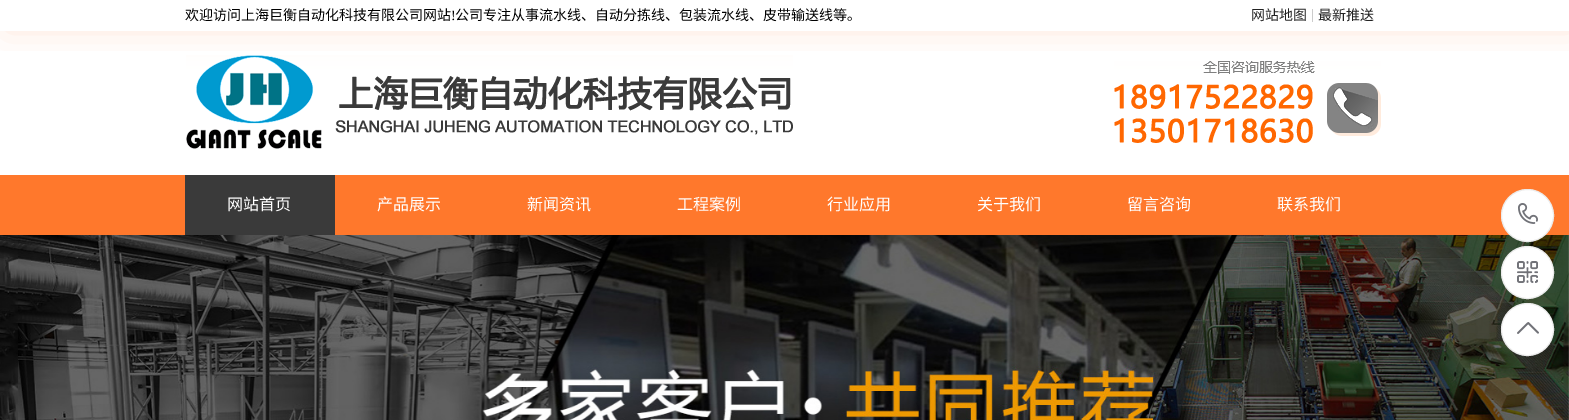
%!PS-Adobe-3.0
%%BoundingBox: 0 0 1569 420
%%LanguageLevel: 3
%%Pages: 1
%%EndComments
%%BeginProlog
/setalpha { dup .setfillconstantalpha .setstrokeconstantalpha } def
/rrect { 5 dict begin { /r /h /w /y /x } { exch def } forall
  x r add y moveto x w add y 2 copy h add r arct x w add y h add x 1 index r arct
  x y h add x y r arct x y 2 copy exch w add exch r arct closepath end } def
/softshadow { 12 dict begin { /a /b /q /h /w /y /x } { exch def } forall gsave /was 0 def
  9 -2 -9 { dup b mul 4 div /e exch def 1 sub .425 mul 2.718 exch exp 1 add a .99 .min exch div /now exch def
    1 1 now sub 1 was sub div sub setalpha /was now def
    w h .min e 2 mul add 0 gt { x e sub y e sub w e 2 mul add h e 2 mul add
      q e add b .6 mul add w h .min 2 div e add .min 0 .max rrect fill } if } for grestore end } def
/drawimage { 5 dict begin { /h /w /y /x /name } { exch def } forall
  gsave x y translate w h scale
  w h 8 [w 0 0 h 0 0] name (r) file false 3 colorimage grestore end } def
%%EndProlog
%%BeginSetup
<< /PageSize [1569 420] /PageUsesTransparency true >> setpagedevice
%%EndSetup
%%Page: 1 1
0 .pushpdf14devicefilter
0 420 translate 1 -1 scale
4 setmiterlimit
1 setgray
0 0 1569 420 rectfill
gsave
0 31 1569 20 rectclip
0.953 0.431 0.141 setrgbcolor
5 0 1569 31 0 17.5 0.16 softshadow
grestore
0.8 setgray
1312 9 1 13 rectfill
(images/1.raw) 186 55 607 94 drawimage
(images/2.raw) 1114 61 267 82 drawimage
1 0.471 0.173 setrgbcolor
0 175 1569 60 rectfill
0.227 setgray
185 175 150 60 rectfill
(images/6.raw) 0 235 1569 185 drawimage
1 setgray
newpath 1527.5 215.5 26 0 360 arc closepath gsave fill grestore
0.922 setgray
stroke
(images/3.raw) 1518 203 20 21 drawimage
1 setgray
newpath 1527.5 272.5 26 0 360 arc closepath gsave fill grestore
0.922 setgray
stroke
(images/4.raw) 1517 261 21 22 drawimage
1 setgray
newpath 1527.5 329.5 26 0 360 arc closepath gsave fill grestore
0.922 setgray
stroke
(images/5.raw) 1517 322 22 12 drawimage
/NotoSansCJKSC-Regular [14 0 0 -14 0 0] selectfont
0 setgray
185 20 moveto (欢迎访问上海巨衡自动化科技有限公司网站) show
/LiberationSerif-Regular [14 0 0 -14 0 0] selectfont
451 20 moveto (!) show
/NotoSansCJKSC-Regular [14 0 0 -14 0 0] selectfont
455 20 moveto (公司专注从事流水线、自动分拣线、包装流水线、皮带输送线等。) show
0.133 setgray
1251 20 moveto (网站地图) show
1318 20 moveto (最新推送) show
/NotoSansCJKSC-Regular [16 0 0 -16 0 0] selectfont
1 setgray
227 210 moveto (网站首页) show
377 210 moveto (产品展示) show
527 210 moveto (新闻资讯) show
677 210 moveto (工程案例) show
827 210 moveto (行业应用) show
977 210 moveto (关于我们) show
1127 210 moveto (留言咨询) show
1277 210 moveto (联系我们) show
.poppdf14devicefilter showpage
%%EOF
